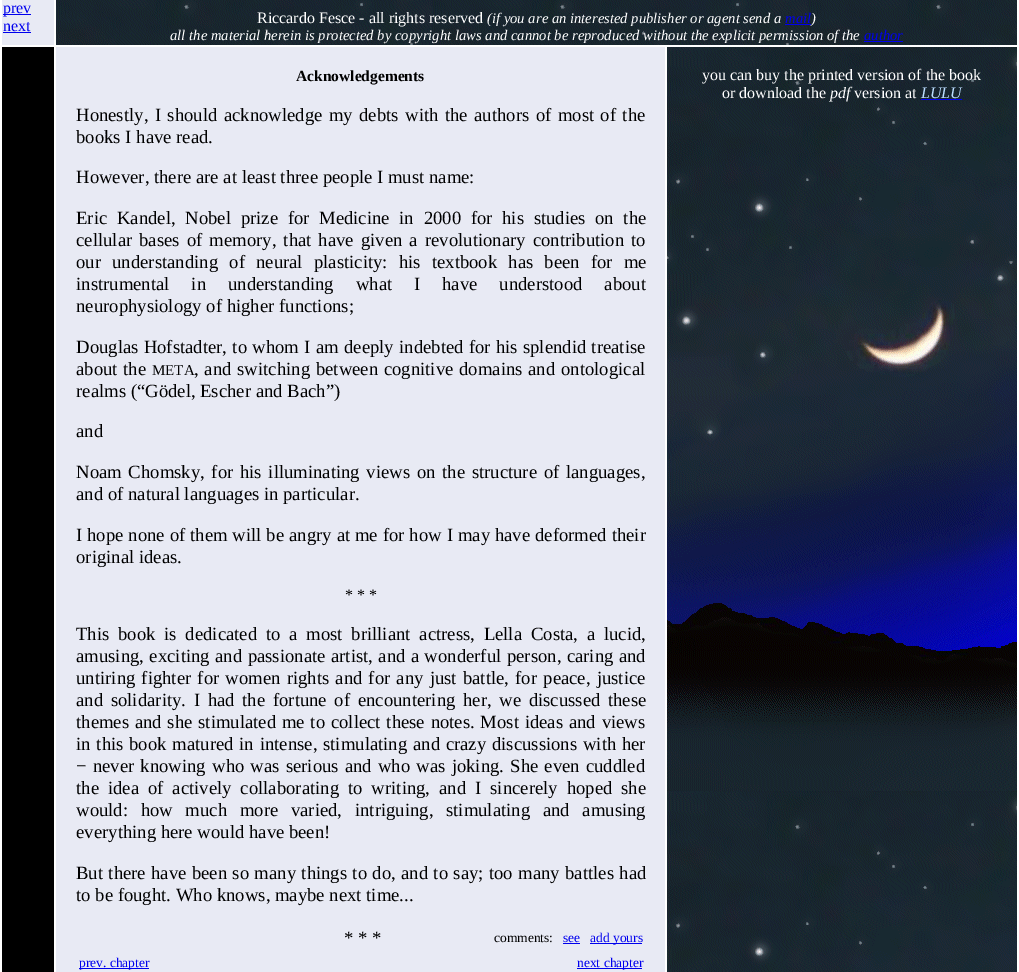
%!PS-Adobe-3.0
%%BoundingBox: 0 0 1019 972
%%LanguageLevel: 3
%%Pages: 1
%%EndComments
%%BeginProlog
/drawimage { 5 dict begin { /h /w /y /x /name } { exch def } forall
  gsave x y translate w h scale
  w h 8 [w 0 0 h 0 0] name (r) file false 3 colorimage grestore end } def
%%EndProlog
%%BeginSetup
<< /PageSize [1019 972] >> setpagedevice
%%EndSetup
%%Page: 1 1
0 972 translate 1 -1 scale
4 setmiterlimit
1 setgray
0 0 1019 972 rectfill
0.91 0.918 0.957 setrgbcolor
2 0 52 45 rectfill
0 0 0.933 setrgbcolor
3 14 28 1 rectfill
3 32 28 1 rectfill
(images/1.raw) 56 0 961 45 drawimage
785 24 26 1 rectfill
864 41 39 1 rectfill
0 setgray
2 47 52 925 rectfill
0.91 0.918 0.957 setrgbcolor
56 47 609 925 rectfill
0 0 0.933 setrgbcolor
563 943 17 1 rectfill
590 943 52 1 rectfill
79 968 70 1 rectfill
577 968 65 1 rectfill
(images/2.raw) 667 47 350 925 drawimage
921 99 41 1 rectfill
/LiberationSerif-Regular [16 0 0 -16 0 0] selectfont
3 13 moveto (prev) show
3 31 moveto (next) show
1 setgray
257 23 moveto (Riccardo Fesce - all rights reserved) show
/LiberationSerif-Italic [14.65 0 0 -14.65 0 0] selectfont
487 23 moveto (\(if you are an interested publisher or agent send a) show
0 0 0.933 setrgbcolor
785 23 moveto (mail) show
1 setgray
811 23 moveto (\)) show
170 40 moveto (all the material herein is protected by copyright laws and cannot be reproduced without the explicit permission of the) show
0 0 0.933 setrgbcolor
864 40 moveto (author) show
/LiberationSerif-Bold [15.5 0 0 -15.5 0 0] selectfont
0 setgray
296 81 moveto (Acknowledgements) show
/LiberationSerif-Regular [18.7 0 0 -18.7 0 0] selectfont
76 121 moveto 1.8 0 32 (Honestly, I should acknowledge my debts with the authors of most of the) widthshow
76 143 moveto (books I have read.) show
76 183 moveto (However, there are at least three people I must name:) show
76 224 moveto 5 0 32 (Eric Kandel, Nobel prize for Medicine in 2000 for his studies on the) widthshow
76 246 moveto 2.4 0 32 (cellular bases of memory, that have given a revolutionary contribution to) widthshow
76 268 moveto 6.5 0 32 (our understanding of neural plasticity: his textbook has been for me) widthshow
76 290 moveto 17.25 0 32 (instrumental in understanding what I have understood about) widthshow
76 312 moveto (neurophysiology of higher functions;) show
76 353 moveto 0.6 0 32 (Douglas Hofstadter, to whom I am deeply indebted for his splendid treatise) widthshow
76 375 moveto 1 0 32 (about the) widthshow
/LiberationSerif-Regular [15 0 0 -15 0 0] selectfont
152 375 moveto (META) show
/LiberationSerif-Regular [18.7 0 0 -18.7 0 0] selectfont
194 375 moveto 1.1 0 32 (, and switching between cognitive domains and ontological) widthshow
76 397 moveto (realms \(“Gödel, Escher and Bach”\)) show
76 437 moveto (and) show
76 478 moveto 2 0 32 (Noam Chomsky, for his illuminating views on the structure of languages,) widthshow
76 500 moveto (and of natural languages in particular.) show
76 541 moveto 0.25 0 32 (I hope none of them will be angry at me for how I may have deformed their) widthshow
76 563 moveto (original ideas.) show
/LiberationSerif-Regular [16 0 0 -16 0 0] selectfont
345 600 moveto (* * *) show
/LiberationSerif-Regular [18.7 0 0 -18.7 0 0] selectfont
76 640 moveto 4.1 0 32 (This book is dedicated to a most brilliant actress, Lella Costa, a lucid,) widthshow
76 662 moveto 0.75 0 32 (amusing, exciting and passionate artist, and a wonderful person, caring and) widthshow
76 684 moveto 1.5 0 32 (untiring fighter for women rights and for any just battle, for peace, justice) widthshow
76 706 moveto 3 0 32 (and solidarity. I had the fortune of encountering her, we discussed these) widthshow
76 728 moveto 1.1 0 32 (themes and she stimulated me to collect these notes. Most ideas and views) widthshow
76 750 moveto 1.1 0 32 (in this book matured in intense, stimulating and crazy discussions with her) widthshow
76 772 moveto 1.5 0 32 (− never knowing who was serious and who was joking. She even cuddled) widthshow
76 794 moveto 4.25 0 32 (the idea of actively collaborating to writing, and I sincerely hoped she) widthshow
76 816 moveto 8 0 32 (would: how much more varied, intriguing, stimulating and amusing) widthshow
76 838 moveto (everything here would have been!) show
76 879 moveto 0.7 0 32 (But there have been so many things to do, and to say; too many battles had) widthshow
76 901 moveto (to be fought. Who knows, maybe next time...) show
344 944 moveto (* * *) show
/LiberationSerif-Regular [13.5 0 0 -13.5 0 0] selectfont
494 942 moveto (comments:) show
0 0 0.933 setrgbcolor
563 942 moveto (see) show
590 942 moveto (add yours) show
79 967 moveto (prev. chapter) show
577 967 moveto (next chapter) show
/LiberationSerif-Regular [16 0 0 -16 0 0] selectfont
1 setgray
702 80 moveto (you can buy the printed version of the book) show
722 98 moveto (or download the) show
/LiberationSerif-Italic [16 0 0 -16 0 0] selectfont
830 98 moveto (pdf) show
/LiberationSerif-Regular [16 0 0 -16 0 0] selectfont
854 98 moveto (version at) show
/LiberationSerif-Italic [16 0 0 -16 0 0] selectfont
0.733 0.867 1 setrgbcolor
921 98 moveto (LULU) show
showpage
%%EOF
